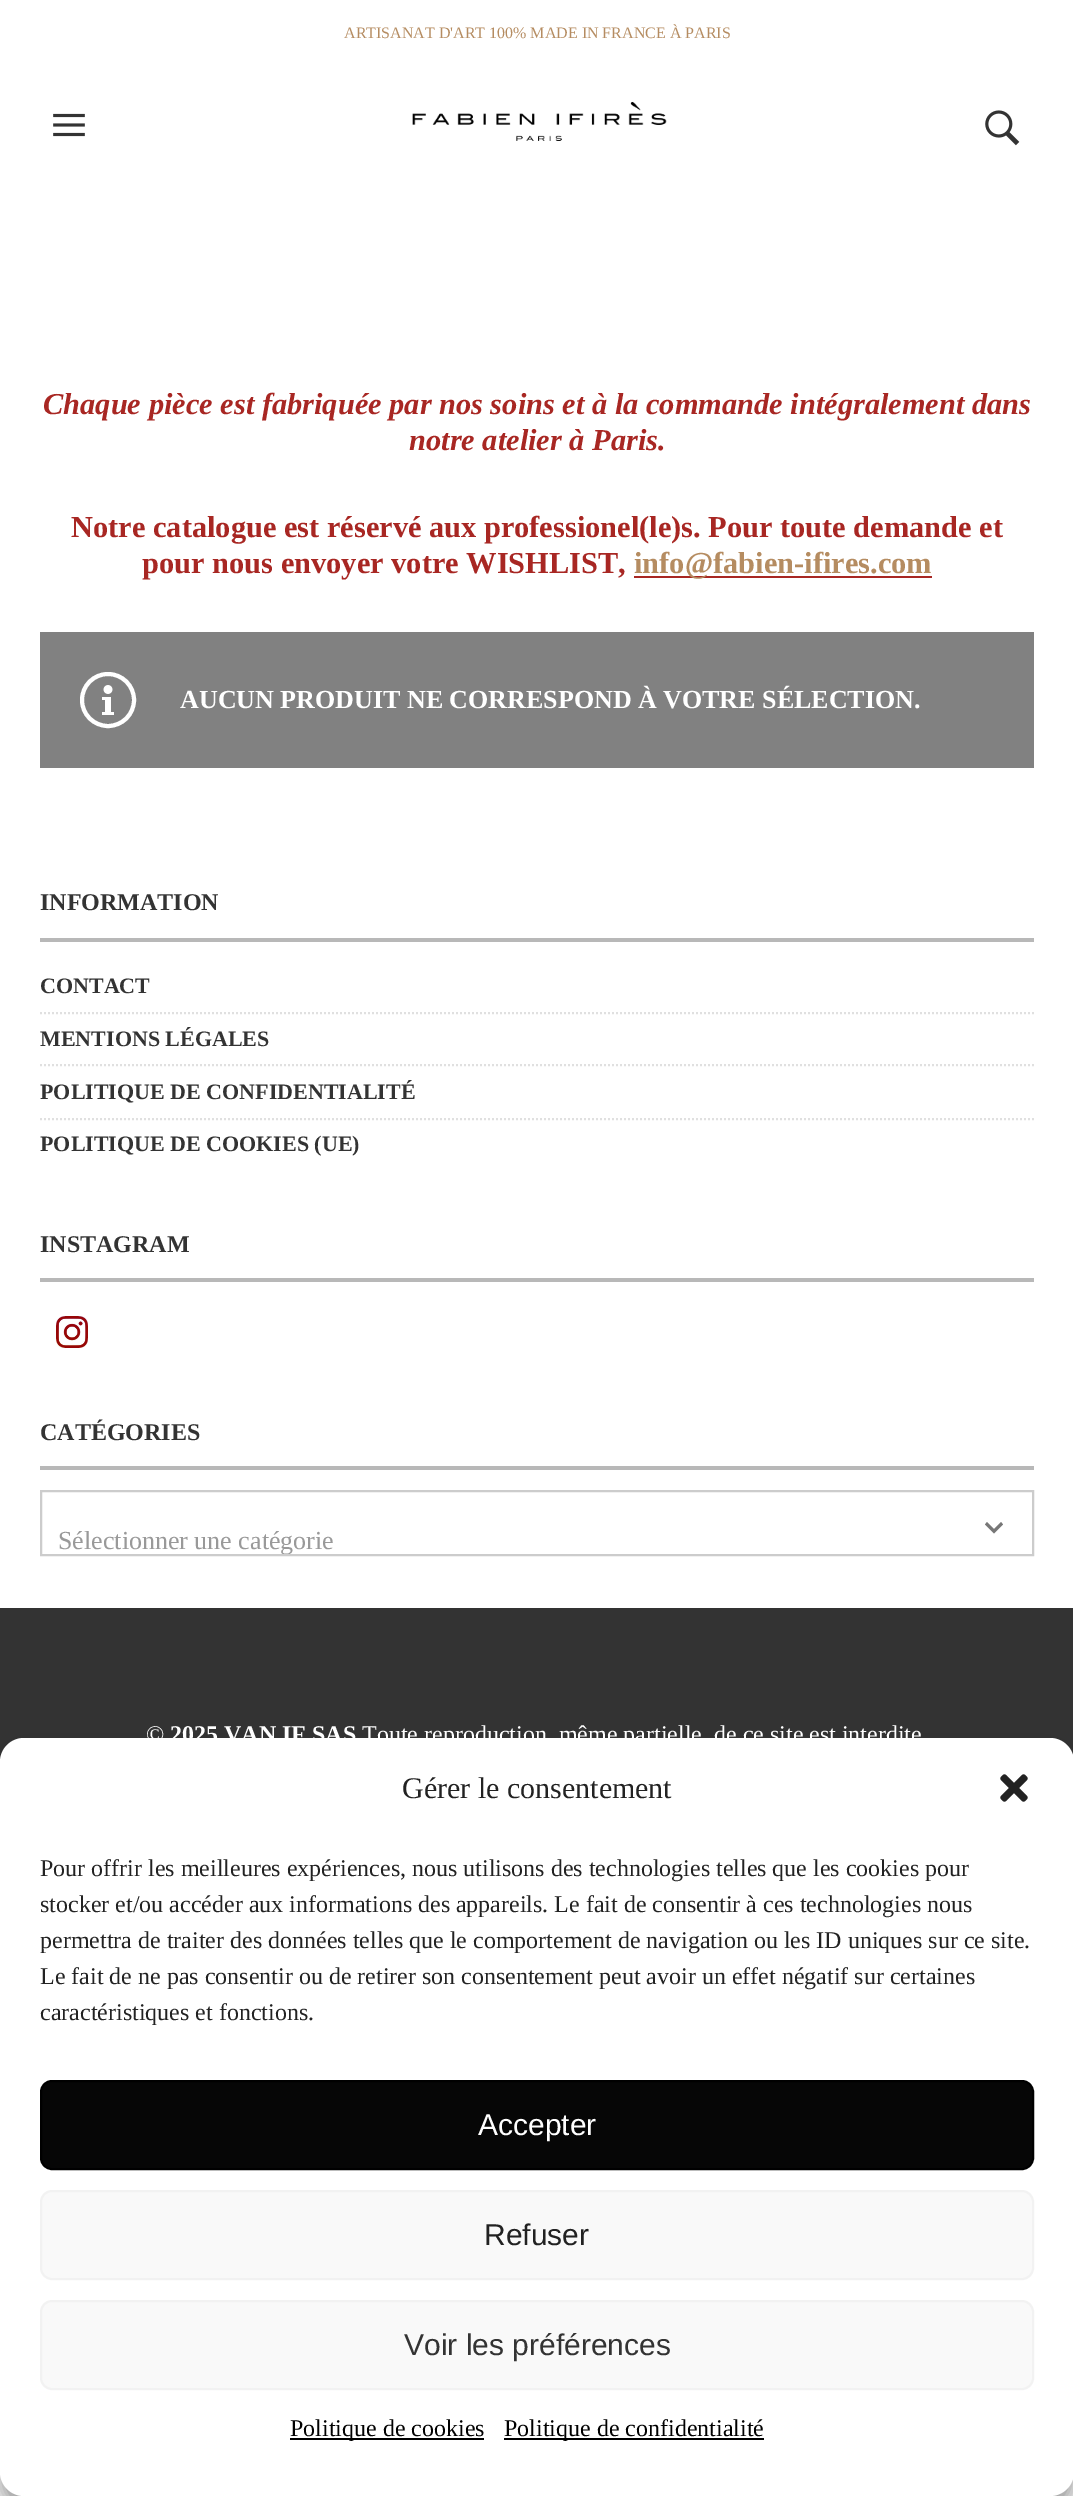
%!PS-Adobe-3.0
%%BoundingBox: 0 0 1073 2496
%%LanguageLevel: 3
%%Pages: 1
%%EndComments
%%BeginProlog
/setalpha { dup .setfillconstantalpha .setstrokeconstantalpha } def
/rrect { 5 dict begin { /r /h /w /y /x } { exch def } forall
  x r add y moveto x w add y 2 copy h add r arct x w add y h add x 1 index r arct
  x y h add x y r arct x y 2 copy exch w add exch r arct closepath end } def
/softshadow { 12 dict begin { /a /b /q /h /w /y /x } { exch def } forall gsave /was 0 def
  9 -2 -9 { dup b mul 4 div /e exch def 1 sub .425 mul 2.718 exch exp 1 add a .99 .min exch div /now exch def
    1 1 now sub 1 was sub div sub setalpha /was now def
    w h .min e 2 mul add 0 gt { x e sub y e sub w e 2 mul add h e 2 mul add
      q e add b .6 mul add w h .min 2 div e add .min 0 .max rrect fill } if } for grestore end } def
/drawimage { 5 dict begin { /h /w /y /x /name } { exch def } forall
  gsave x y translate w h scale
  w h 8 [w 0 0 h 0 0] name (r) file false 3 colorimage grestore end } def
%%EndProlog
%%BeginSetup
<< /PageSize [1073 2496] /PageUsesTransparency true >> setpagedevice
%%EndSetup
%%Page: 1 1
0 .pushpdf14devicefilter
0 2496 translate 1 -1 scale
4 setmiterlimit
1 setgray
0 0 1073 2496 rectfill
(images/1.raw) 53 113 32 24 drawimage
(images/2.raw) 412 101 255 40 drawimage
(images/3.raw) 985 110 35 36 drawimage
0.659 0.153 0.137 setrgbcolor
634 576 298 2 rectfill
0.506 setgray
40 632 994 136 rectfill
(images/4.raw) 102 685 12 30 drawimage
1 setgray
4 setlinewidth
newpath 108 700 26 0 360 arc closepath stroke
0.722 setgray
40 938 994 4 rectfill
0.878 setgray
2 setlinewidth
[2 2] 0 setdash
newpath 40 1013 moveto 1034 1013 lineto stroke
newpath 40 1065 moveto 1034 1065 lineto stroke
newpath 40 1119 moveto 1034 1119 lineto stroke
0.722 setgray
40 1278 994 4 rectfill
(images/5.raw) 56 1316 32 32 drawimage
40 1466 994 4 rectfill
0.8 setgray
[] 0 setdash
41 1491 992 64 rectstroke
0.467 setgray
newpath 987 1522 moveto 985 1524.5 lineto 994 1533.5 lineto 1003 1524.5 lineto 1001 1522 lineto 994 1529 lineto closepath fill
0.2 setgray
0 1608 1073 154 rectfill
0 setgray
0 1750 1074 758 24 6 0.23 softshadow
0 1758 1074 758 24 20 0.19 softshadow
1 setgray
0 1738 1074 758 24 rrect fill
(images/6.raw) 1000 1774 28 28 drawimage
0.024 setgray
41 2081 992 88 11 rrect gsave fill grestore
0 setgray
stroke
0.976 setgray
41 2191 992 88 11 rrect gsave fill grestore
0.949 setgray
stroke
0.976 setgray
41 2301 992 88 11 rrect gsave fill grestore
0.949 setgray
stroke
0 setgray
290 2438 194 2 rectfill
504 2438 260 2 rectfill
/LiberationSerif-Regular [16 0 0 -16 0 0] selectfont
0.71 0.549 0.38 setrgbcolor
344 38 moveto (ARTISANAT D'ART 100% MADE IN FRANCE À PARIS) show
/LiberationSerif-BoldItalic [30.4 0 0 -30.4 0 0] selectfont
0.659 0.153 0.137 setrgbcolor
43 414 moveto (Chaque pièce est fabriquée par nos soins et à la commande intégralement dans) show
409 450 moveto (notre atelier à Paris.) show
/LiberationSerif-Bold [30.4 0 0 -30.4 0 0] selectfont
71 537 moveto (Notre catalogue est réservé aux professionel\(le\)s. Pour toute demande et) show
142 573 moveto (pour nous envoyer votre WISHLIST,) show
0.71 0.549 0.38 setrgbcolor
634 573 moveto (info@fabien-ifires.com) show
/LiberationSerif-Bold [26 0 0 -26 0 0] selectfont
1 setgray
180 708 moveto (AUCUN PRODUIT NE CORRESPOND À VOTRE SÉLECTION.) show
/LiberationSerif-Bold [24 0 0 -24 0 0] selectfont
0.2 setgray
40 910 moveto (INFORMATION) show
/LiberationSerif-Bold [22 0 0 -22 0 0] selectfont
40 993 moveto (CONTACT) show
40 1046 moveto (MENTIONS LÉGALES) show
40 1099 moveto (POLITIQUE DE CONFIDENTIALITÉ) show
40 1151 moveto (POLITIQUE DE COOKIES \(UE\)) show
/LiberationSerif-Bold [24 0 0 -24 0 0] selectfont
40 1252 moveto (INSTAGRAM) show
40 1440 moveto (CATÉGORIES) show
gsave
42 1492 990 62 rectclip
/LiberationSerif-Regular [26 0 0 -26 0 0] selectfont
0.6 setgray
58 1549 moveto (Sélectionner une catégorie) show
grestore
/LiberationSerif-Regular [24 0 0 -24 0 0] selectfont
1 setgray
146 1742 moveto (©) show
/LiberationSerif-Bold [24 0 0 -24 0 0] selectfont
170 1742 moveto (2025 VAN IF SAS) show
/LiberationSerif-Regular [24 0 0 -24 0 0] selectfont
362 1742 moveto (Toute reproduction, même partielle, de ce site est interdite) show
/LiberationSerif-Regular [30 0 0 -30 0 0] selectfont
0.133 setgray
402 1798 moveto (Gérer le consentement) show
/LiberationSerif-Regular [24 0 0 -24 0 0] selectfont
40 1876 moveto (Pour offrir les meilleures expériences, nous utilisons des technologies telles que les cookies pour) show
40 1912 moveto (stocker et/ou accéder aux informations des appareils. Le fait de consentir à ces technologies nous) show
40 1948 moveto (permettra de traiter des données telles que le comportement de navigation ou les ID uniques sur ce site.) show
40 1984 moveto (Le fait de ne pas consentir ou de retirer son consentement peut avoir un effet négatif sur certaines) show
40 2020 moveto (caractéristiques et fonctions.) show
/LiberationSans-Regular [30 0 0 -30 0 0] selectfont
1 setgray
478 2135 moveto (Accepter) show
0.133 setgray
484 2245 moveto (Refuser) show
0.2 setgray
404 2355 moveto (Voir les préférences) show
/LiberationSerif-Regular [24 0 0 -24 0 0] selectfont
0 setgray
290 2436 moveto (Politique de cookies) show
504 2436 moveto (Politique de confidentialité) show
.poppdf14devicefilter showpage
%%EOF
